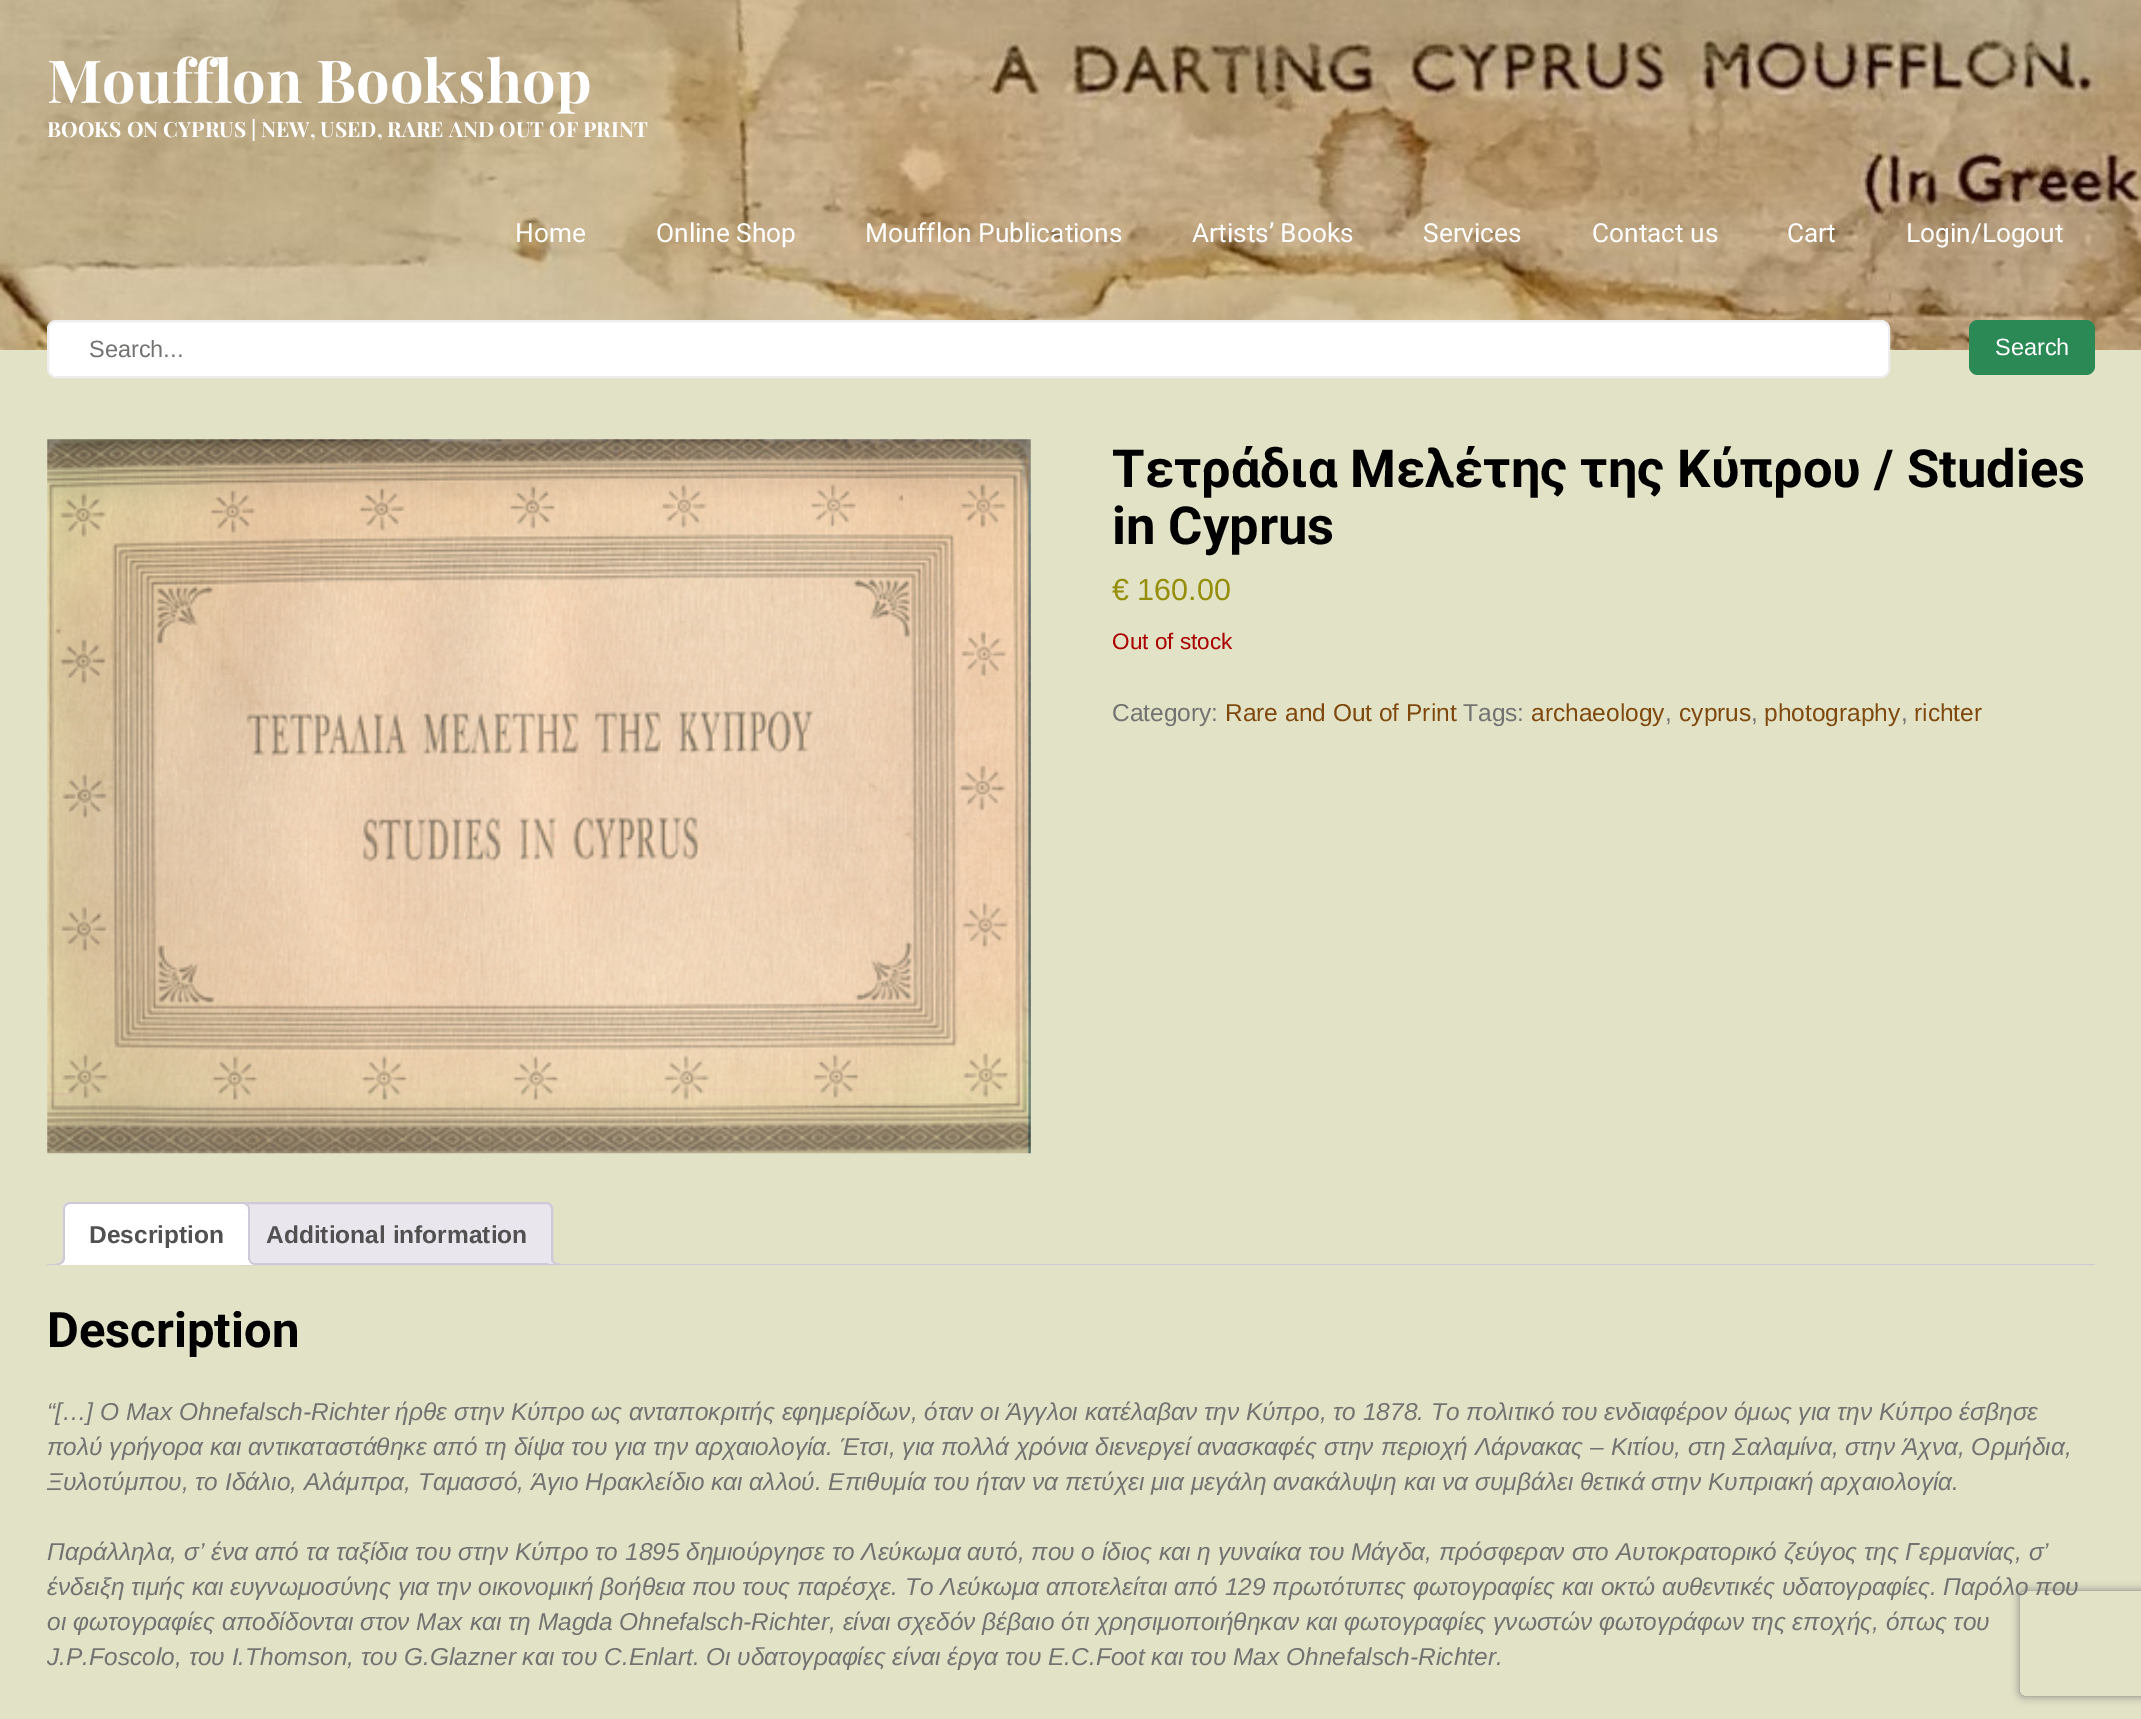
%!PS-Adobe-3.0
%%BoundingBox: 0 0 2141 1719
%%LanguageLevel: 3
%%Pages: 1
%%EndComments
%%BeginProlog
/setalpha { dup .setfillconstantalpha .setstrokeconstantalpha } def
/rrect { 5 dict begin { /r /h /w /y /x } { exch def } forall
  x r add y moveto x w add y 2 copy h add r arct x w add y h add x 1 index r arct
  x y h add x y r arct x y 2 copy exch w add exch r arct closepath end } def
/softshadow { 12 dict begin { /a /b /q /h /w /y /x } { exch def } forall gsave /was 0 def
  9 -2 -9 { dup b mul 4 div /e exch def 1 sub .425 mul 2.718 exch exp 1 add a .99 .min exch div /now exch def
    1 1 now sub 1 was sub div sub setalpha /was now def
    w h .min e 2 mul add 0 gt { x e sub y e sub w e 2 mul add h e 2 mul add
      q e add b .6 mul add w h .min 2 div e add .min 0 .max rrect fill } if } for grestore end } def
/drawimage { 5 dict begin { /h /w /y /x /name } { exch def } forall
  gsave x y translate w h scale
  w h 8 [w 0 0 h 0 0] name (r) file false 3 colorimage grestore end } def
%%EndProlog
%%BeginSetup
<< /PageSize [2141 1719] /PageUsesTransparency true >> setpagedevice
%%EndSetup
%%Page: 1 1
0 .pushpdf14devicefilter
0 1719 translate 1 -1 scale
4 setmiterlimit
0.886 0.886 0.78 setrgbcolor
0 0 2141 1719 rectfill
(images/1.raw) 0 0 2141 350 drawimage
1 setgray
48 321 1841 56 8 rrect gsave fill grestore
0.933 setgray
2 setlinewidth
stroke
0.165 0.537 0.333 setrgbcolor
1969 320 126 55 9 rrect fill
(images/2.raw) 47 439 984 715 drawimage
0.914 0.902 0.929 setrgbcolor
newpath 247 1203 moveto 546 1203 lineto 549.5 1203 552 1205.5 552 1209 curveto 552 1264 lineto 241 1264 lineto 241 1209 lineto 241 1205.5 243.5 1203 247 1203 curveto closepath gsave fill grestore
0.812 0.784 0.847 setrgbcolor
stroke
gsave
47 1202 2048 63 rectclip
0.914 0.902 0.929 setrgbcolor
newpath 548 1260 moveto 548 1266.5 550.5 1269 557 1269 curveto 557 1265 lineto 554.5 1264.5 552 1262.5 551.5 1260 curveto closepath fill
grestore
newpath 551 1256.5 moveto 560 1256.5 lineto 560 1265 lineto 555.5 1265 551 1263.5 551 1258 curveto closepath 553 1256.5 moveto 560 1256.5 lineto 560 1263.5 lineto 556.5 1263.5 553 1262.5 553 1258 curveto closepath eofill
47 1264 2048 1 rectfill
1 setgray
newpath 70 1202 moveto 243 1202 lineto 247 1202 250 1205 250 1209 curveto 250 1265 lineto 63 1265 lineto 63 1209 lineto 63 1205 66 1202 70 1202 curveto closepath fill
0.812 0.784 0.847 setrgbcolor
newpath 70 1204 moveto 68 1204 67 1205 66 1206 curveto 65 1204 lineto 68 1202 lineto 245 1202 lineto 248 1204 lineto 247 1206 lineto 246 1205 245 1204 243 1204 curveto closepath fill
newpath 248 1204 moveto 249 1205 250 1207 250 1209 curveto 250 1265 lineto 248 1263 lineto 248 1209 lineto 248 1208 248 1206 247 1206 curveto closepath fill
1 setgray
newpath 250 1265 moveto 248 1263 lineto 248 1264 lineto 65 1264 lineto 65 1263 lineto 63 1265 lineto closepath fill
0.812 0.784 0.847 setrgbcolor
newpath 63 1209 moveto 63 1265 lineto 65 1263 lineto 65 1209 lineto 65 1208 65 1206 66 1206 curveto 65 1204 lineto 64 1205 63 1207 63 1209 curveto closepath fill
gsave
47 1202 2048 63 rectclip
1 setgray
newpath 60 1265 moveto 60 1269 lineto 66 1269 68 1265.5 68 1260 curveto 64.5 1260 lineto 64 1262.5 62 1264 60 1265 curveto closepath fill
grestore
newpath 56 1256.5 moveto 65 1256.5 lineto 65 1262.5 62 1265 56 1265 curveto closepath 56 1256.5 moveto 63 1256.5 lineto 63 1261.5 61 1263.5 56 1263.5 curveto closepath eofill
gsave
47 1202 2048 63 rectclip
1 setgray
newpath 245 1260 moveto 245 1266.5 247.5 1269 254 1269 curveto 254 1265 lineto 251.5 1264.5 249.5 1262.5 248.5 1260 curveto closepath fill
grestore
newpath 248.5 1256.5 moveto 257 1256.5 lineto 257 1265 lineto 253 1265 248.5 1263.5 248.5 1258 curveto closepath 250 1256.5 moveto 257 1256.5 lineto 257 1263.5 lineto 254 1263.5 250 1262.5 250 1258 curveto closepath eofill
gsave
newpath 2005 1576 moveto 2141 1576 lineto 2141 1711 lineto 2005 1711 lineto closepath 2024 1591 moveto 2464 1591 lineto 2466 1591 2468 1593 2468 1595 curveto 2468 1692 lineto 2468 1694 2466 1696 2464 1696 curveto 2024 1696 lineto 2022 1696 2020 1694 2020 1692 curveto 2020 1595 lineto 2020 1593 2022 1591 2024 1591 curveto closepath eoclip newpath
0.502 setgray
2020 1591 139 105 4 4.5 1 softshadow
grestore
/PlayfairDisplay-Bold [59.5 0 0 -59.5 0 0] selectfont
1 setgray
47 103 moveto (Moufflon Bookshop) show
/PlayfairDisplay-Bold [21 0 0 -21 0 0] selectfont
47 137 moveto (BOOKS ON CYPRUS | NEW, USED, RARE AND OUT OF PRINT) show
/Roboto-Regular [26.25 0 0 -26.25 0 0] selectfont
515 242 moveto (Home) show
656 242 moveto (Online Shop) show
865 242 moveto (Moufflon Publications) show
1192 242 moveto (Artists’ Books) show
1423 242 moveto (Services) show
1592 242 moveto (Contact us) show
1787 242 moveto (Cart) show
1906 242 moveto (Login/Logout) show
/LiberationSans-Regular [23.5 0 0 -23.5 0 0] selectfont
0.447 0.451 0.439 setrgbcolor
89 357 moveto (Search...) show
1 setgray
1995 355 moveto (Search) show
/Roboto-Bold [52.5 0 0 -52.5 0 0] selectfont
0 setgray
1112 487 moveto (Τετράδια Μελέτης της Κύπρου / Studies) show
1112 544 moveto (in Cyprus) show
/LiberationSans-Regular [30.5 0 0 -30.5 0 0] selectfont
0.584 0.557 0.035 setrgbcolor
1112 600 moveto (€ 160.00) show
/LiberationSans-Regular [22.5 0 0 -22.5 0 0] selectfont
0.667 0 0 setrgbcolor
1112 649 moveto (Out of stock) show
/LiberationSans-Regular [24.5 0 0 -24.5 0 0] selectfont
0.447 0.451 0.439 setrgbcolor
1112 721 moveto (Category:) show
0.498 0.282 0.047 setrgbcolor
1225 721 moveto (Rare and Out of Print) show
0.447 0.451 0.439 setrgbcolor
1463 721 moveto (Tags:) show
0.498 0.282 0.047 setrgbcolor
1531 721 moveto (archaeology) show
0.447 0.451 0.439 setrgbcolor
1665 721 moveto (,) show
0.498 0.282 0.047 setrgbcolor
1679 721 moveto (cyprus) show
0.447 0.451 0.439 setrgbcolor
1751 721 moveto (,) show
0.498 0.282 0.047 setrgbcolor
1764 721 moveto (photography) show
0.447 0.451 0.439 setrgbcolor
1901 721 moveto (,) show
0.498 0.282 0.047 setrgbcolor
1914 721 moveto (richter) show
/LiberationSans-Bold [24.5 0 0 -24.5 0 0] selectfont
0.318 setgray
89 1243 moveto (Description) show
266 1243 moveto (Additional information) show
/Roboto-Bold [49 0 0 -49 0 0] selectfont
0 setgray
47 1347 moveto (Description) show
/LiberationSans-Italic [24.5 0 0 -24.5 0 0] selectfont
0.447 0.451 0.439 setrgbcolor
47 1420 moveto (“[…] Ο Max Ohnefalsch-Richter ήρθε στην Κύπρο ως ανταποκριτής εφημερίδων, όταν οι Άγγλοι κατέλαβαν την Κύπρο, το 1878. Το πολιτικό του ενδιαφέρον όμως για την Κύπρο έσβησε) show
47 1455 moveto (πολύ γρήγορα και αντικαταστάθηκε από τη δίψα του για την αρχαιολογία. Έτσι, για πολλά χρόνια διενεργεί ανασκαφές στην περιοχή Λάρνακας – Κιτίου, στη Σαλαμίνα, στην Άχνα, Ορμήδια,) show
47 1490 moveto (Ξυλοτύμπου, το Ιδάλιο, Αλάμπρα, Ταμασσό, Άγιο Ηρακλείδιο και αλλού. Επιθυμία του ήταν να πετύχει μια μεγάλη ανακάλυψη και να συμβάλει θετικά στην Κυπριακή αρχαιολογία.) show
47 1560 moveto (Παράλληλα, σ’ ένα από τα ταξίδια του στην Κύπρο το 1895 δημιούργησε το Λεύκωμα αυτό, που ο ίδιος και η γυναίκα του Μάγδα, πρόσφεραν στο Αυτοκρατορικό ζεύγος της Γερμανίας, σ’) show
47 1595 moveto (ένδειξη τιμής και ευγνωμοσύνης για την οικονομική βοήθεια που τους παρέσχε. Το Λεύκωμα αποτελείται από 129 πρωτότυπες φωτογραφίες και οκτώ αυθεντικές υδατογραφίες. Παρόλο που) show
47 1630 moveto (οι φωτογραφίες αποδίδονται στον Max και τη Magda Ohnefalsch-Richter, είναι σχεδόν βέβαιο ότι χρησιμοποιήθηκαν και φωτογραφίες γνωστών φωτογράφων της εποχής, όπως του) show
47 1665 moveto (J.P.Foscolo, του I.Thomson, του G.Glazner και του C.Enlart. Οι υδατογραφίες είναι έργα του E.C.Foot και του Max Ohnefalsch-Richter.) show
.poppdf14devicefilter showpage
%%EOF
